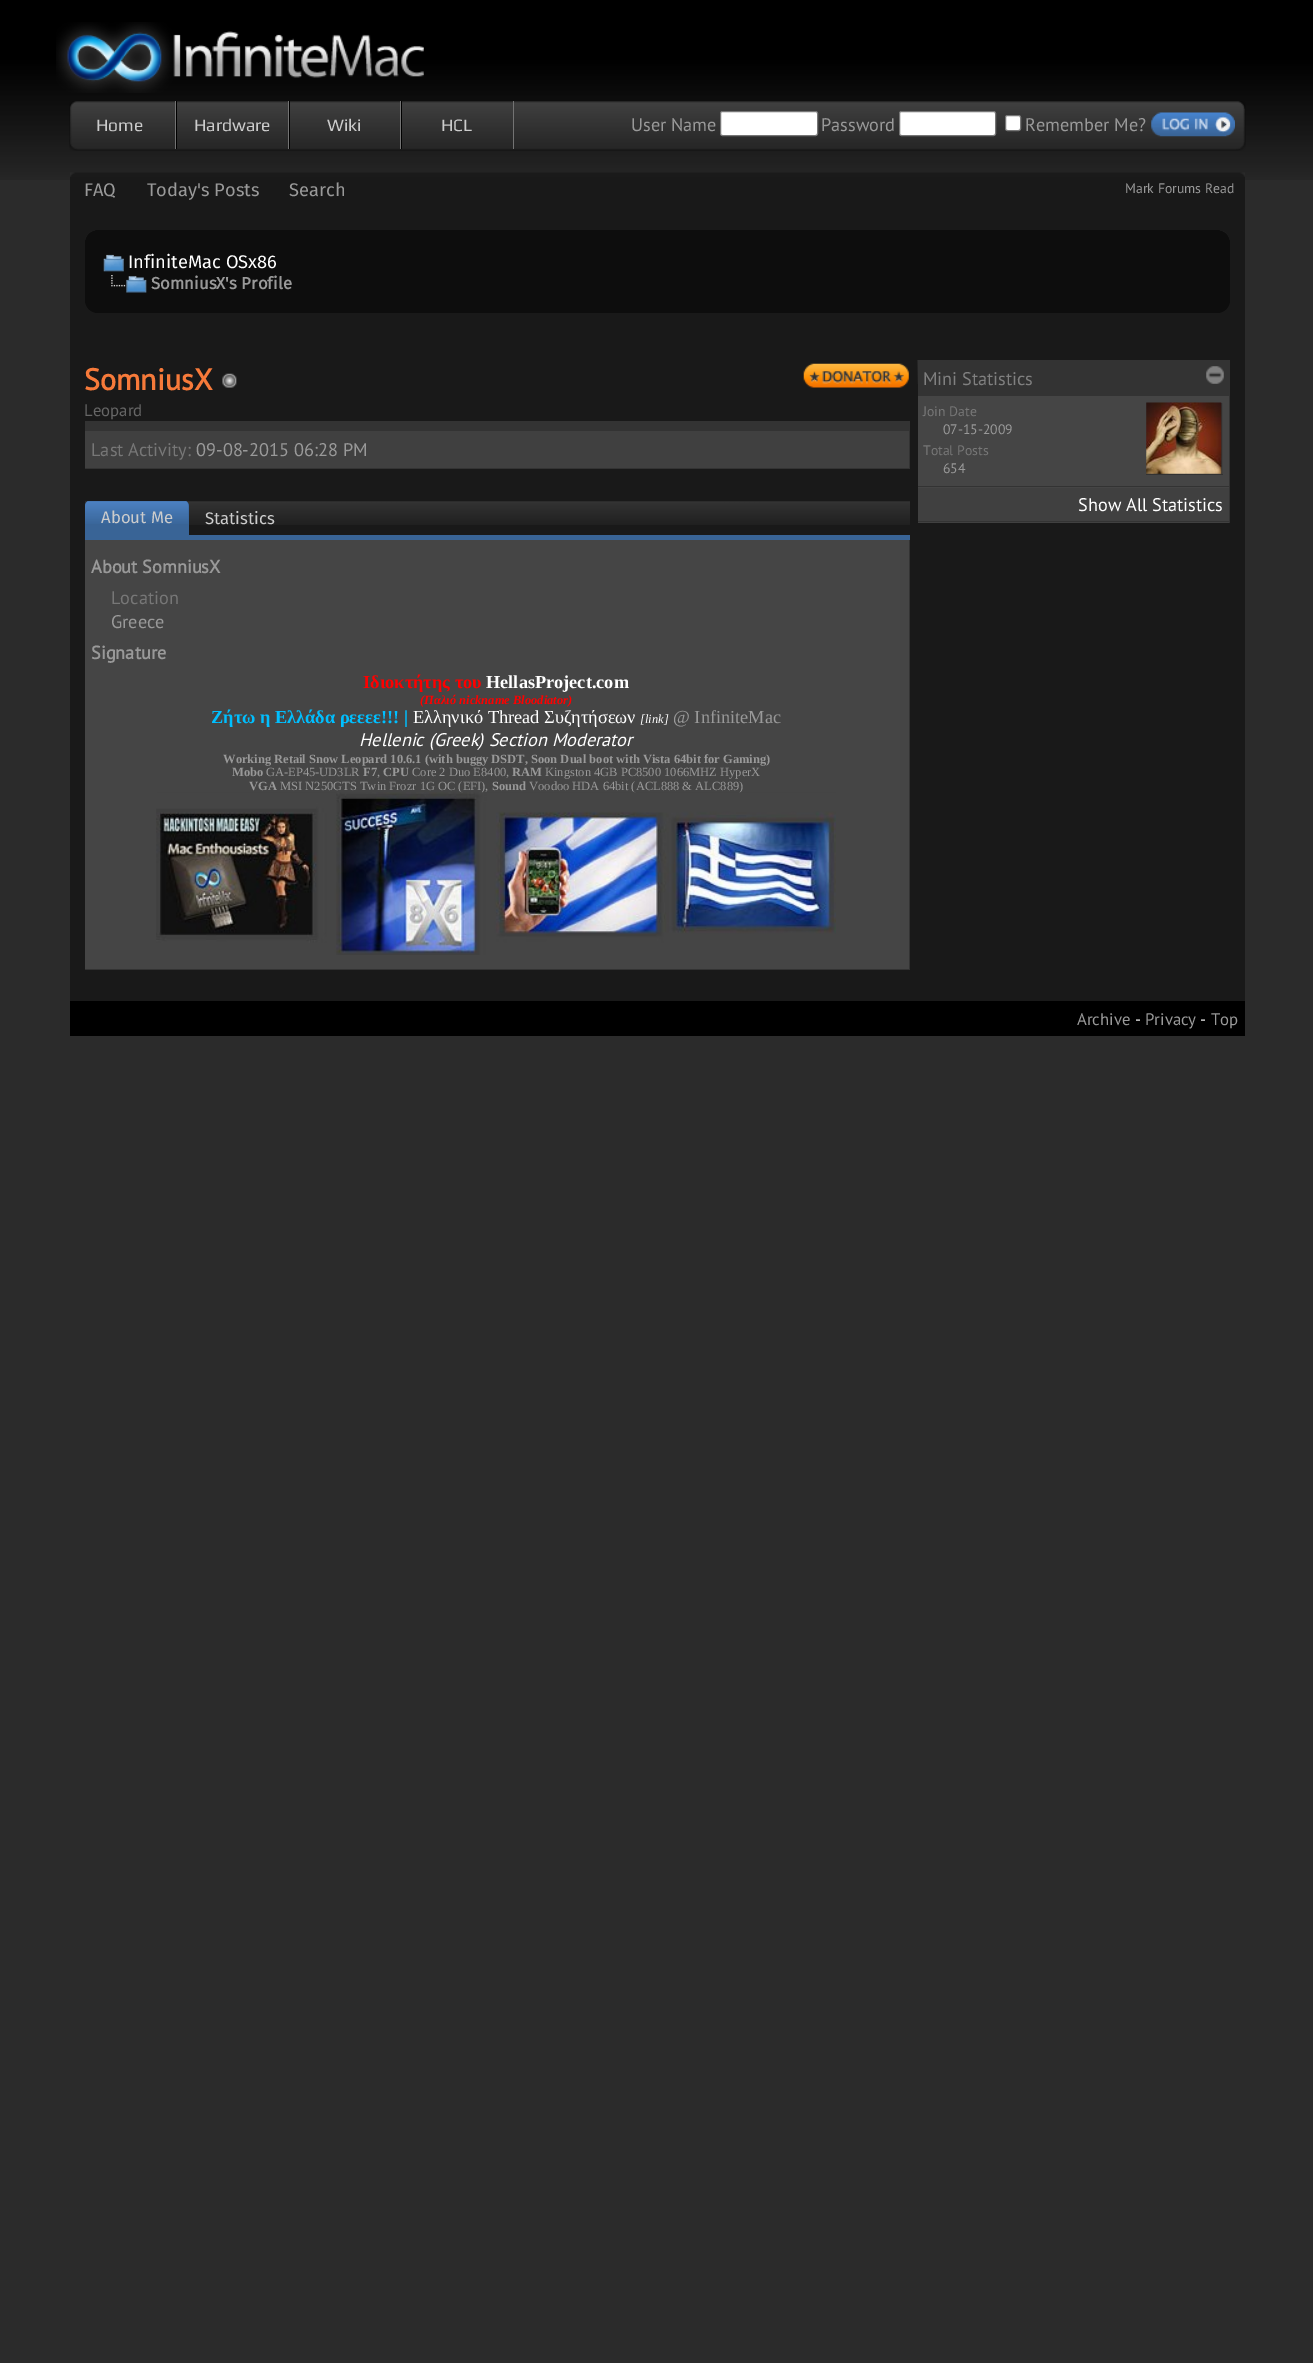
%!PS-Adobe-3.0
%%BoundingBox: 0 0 1313 2363
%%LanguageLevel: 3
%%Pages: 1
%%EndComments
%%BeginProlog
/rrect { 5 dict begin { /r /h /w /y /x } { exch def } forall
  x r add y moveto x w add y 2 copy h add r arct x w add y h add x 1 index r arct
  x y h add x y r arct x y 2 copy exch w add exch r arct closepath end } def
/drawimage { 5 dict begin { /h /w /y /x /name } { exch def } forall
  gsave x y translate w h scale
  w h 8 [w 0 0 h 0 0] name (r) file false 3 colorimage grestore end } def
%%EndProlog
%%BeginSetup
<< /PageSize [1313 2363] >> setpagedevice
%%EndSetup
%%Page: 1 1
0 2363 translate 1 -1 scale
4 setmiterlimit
0.169 setgray
0 0 1313 2363 rectfill
(images/1.raw) 0 0 1313 180 drawimage
(images/2.raw) 56 22 368 71 drawimage
(images/3.raw) 69 101 1177 50 drawimage
0.451 setgray
175 101 1 48 rectfill
288 101 1 48 rectfill
0 setgray
176 101 1 48 rectfill
0.451 setgray
400 101 1 48 rectfill
0 setgray
289 101 1 48 rectfill
0.451 setgray
513 101 1 48 rectfill
0 setgray
401 101 1 48 rectfill
1 setgray
720.5 111.5 97 24 2 rrect gsave fill grestore
0.463 setgray
stroke
1 setgray
899.5 111.5 96 24 2 rrect gsave fill grestore
0.463 setgray
stroke
1 setgray
1005.5 115.5 15 15 2 rrect gsave fill grestore
0.463 setgray
stroke
(images/4.raw) 1151 112 84 25 drawimage
0.098 setgray
70 177 1175 824 rectfill
(images/5.raw) 70 172 1175 5 drawimage
(images/6.raw) 85 230 1145 13 drawimage
0.051 setgray
85 230 1145 83 13 rrect fill
(images/7.raw) 103 254 21 18 drawimage
(images/8.raw) 111 275 36 18 drawimage
(images/9.raw) 222 373 15 15 drawimage
(images/10.raw) 803 363 106 25 drawimage
0.2 setgray
85 421 825 10 rectfill
0.251 setgray
85 431 824 37 rectfill
0.2 setgray
909 431 1 38 rectfill
85 468 825 1 rectfill
(images/11.raw) 85 501 825 24 drawimage
gsave
85 501 825 35 rectclip
0.224 0.392 0.588 setrgbcolor
newpath 91 500 moveto 183 500 lineto 186.5 500 189 502.5 189 506 curveto 189 535 lineto 85 535 lineto 85 506 lineto 85 502.5 87.5 500 91 500 curveto closepath fill
grestore
(images/12.raw) 85 501 104 23 drawimage
0.224 0.392 0.588 setrgbcolor
85 535 825 5 rectfill
0.271 setgray
85 540 824 429 rectfill
0.2 setgray
909 540 1 430 rectfill
85 969 825 1 rectfill
(images/14.raw) 917 360 1 24 drawimage
918 360 312 36 rectfill
(images/15.raw) 1206 366 18 18 drawimage
0.271 setgray
918 396 311 92 rectfill
0.2 setgray
1229 396 1 127 rectfill
918 486 312 1 rectfill
0.251 setgray
1146 403 77 71 rectfill
0.2 setgray
1221 403 1 72 rectfill
(images/16.raw) 1146 402 76 72 drawimage
1146 474 77 1 rectfill
0.251 setgray
918 488 311 35 rectfill
0.2 setgray
918 521 312 1 rectfill
0 setgray
70 1001 1175 35 rectfill
/Play-Regular [17.5 0 0 -17.5 0 0] selectfont
0.8 setgray
96 131 moveto (Home) show
194 131 moveto (Hardware) show
327 131 moveto (Wiki) show
441 131 moveto (HCL) show
/PTSans-Regular [18.3 0 0 -18.3 0 0] selectfont
0.6 setgray
631 131 moveto (User Name) show
821 131 moveto (Password) show
1025 131 moveto (Remember Me?) show
/FiraSans-Regular [18.3 0 0 -18.3 0 0] selectfont
84 196 moveto (FAQ) show
147 196 moveto (Today's Posts) show
289 196 moveto (Search) show
/PTSans-Regular [13.75 0 0 -13.75 0 0] selectfont
1125 193 moveto (Mark Forums Read) show
/FiraSans-Regular [18.3 0 0 -18.3 0 0] selectfont
1 setgray
128 268 moveto (InfiniteMac OSx86) show
/FiraSans-Bold [16.75 0 0 -16.75 0 0] selectfont
0.6 setgray
151 289 moveto (SomniusX's Profile) show
/PTSans-Bold [30 0 0 -30 0 0] selectfont
0.969 0.478 0.227 setrgbcolor
84 390 moveto (SomniusX) show
/PTSans-Regular [16.75 0 0 -16.75 0 0] selectfont
0.4 setgray
84 416 moveto (Leopard) show
/PTSans-Regular [18.3 0 0 -18.3 0 0] selectfont
0.467 setgray
91 456 moveto (Last Activity:) show
0.6 setgray
196 456 moveto (09-08-2015 06:28 PM) show
/FiraSans-Regular [16.75 0 0 -16.75 0 0] selectfont
0.8 setgray
101 523 moveto (About Me) show
205 524 moveto (Statistics) show
/PTSans-Bold [18.3 0 0 -18.3 0 0] selectfont
0.6 setgray
91 573 moveto (About SomniusX) show
/PTSans-Regular [18.3 0 0 -18.3 0 0] selectfont
0.467 setgray
111 604 moveto (Location) show
0.6 setgray
111 628 moveto (Greece) show
/PTSans-Bold [18.3 0 0 -18.3 0 0] selectfont
91 659 moveto (Signature) show
/LiberationSerif-Bold [18.3 0 0 -18.3 0 0] selectfont
1 0 0 setrgbcolor
363 688 moveto (Ιδιοκτήτης του) show
1 setgray
486 688 moveto (HellasProject.com) show
/LiberationSerif-BoldItalic [12.5 0 0 -12.5 0 0] selectfont
1 0 0 setrgbcolor
420 704 moveto (\(Παλιό nickname Bloodiator\)) show
/LiberationSerif-Bold [18.3 0 0 -18.3 0 0] selectfont
0 0.749 1 setrgbcolor
211 723 moveto (Ζήτω η Ελλάδα ρεεεε!!! |) show
/LiberationSerif-Regular [18.3 0 0 -18.3 0 0] selectfont
1 setgray
413 723 moveto (Ελληνικό Thread Συζητήσεων) show
/LiberationSerif-Italic [12.5 0 0 -12.5 0 0] selectfont
640 723 moveto ([link]) show
/LiberationSerif-Regular [18.3 0 0 -18.3 0 0] selectfont
0.6 setgray
673 723 moveto (@ InfiniteMac) show
/PTSans-Italic [18.3 0 0 -18.3 0 0] selectfont
1 setgray
359 746 moveto (Hellenic \(Greek\) Section Moderator) show
/LiberationSerif-Bold [12.5 0 0 -12.5 0 0] selectfont
0.6 setgray
223 763 moveto (Working Retail Snow Leopard 10.6.1 \(with buggy DSDT, Soon Dual boot with Vista 64bit for Gaming\)) show
232 776 moveto (Mobo) show
/LiberationSerif-Regular [12.5 0 0 -12.5 0 0] selectfont
266 776 moveto (GA-EP45-UD3LR) show
/LiberationSerif-Bold [12.5 0 0 -12.5 0 0] selectfont
363 776 moveto (F7) show
/LiberationSerif-Regular [12.5 0 0 -12.5 0 0] selectfont
377 776 moveto (,) show
/LiberationSerif-Bold [12.5 0 0 -12.5 0 0] selectfont
383 776 moveto (CPU) show
/LiberationSerif-Regular [12.5 0 0 -12.5 0 0] selectfont
412 776 moveto (Core 2 Duo E8400,) show
/LiberationSerif-Bold [12.5 0 0 -12.5 0 0] selectfont
512 776 moveto (RAM) show
/LiberationSerif-Regular [12.5 0 0 -12.5 0 0] selectfont
545 776 moveto (Kingston 4GB PC8500 1066MHZ HyperX) show
/LiberationSerif-Bold [12.5 0 0 -12.5 0 0] selectfont
249 790 moveto (VGA) show
/LiberationSerif-Regular [12.5 0 0 -12.5 0 0] selectfont
280 790 moveto (MSI N250GTS Twin Frozr 1G OC \(EFI\),) show
/LiberationSerif-Bold [12.5 0 0 -12.5 0 0] selectfont
492 790 moveto (Sound) show
/LiberationSerif-Regular [12.5 0 0 -12.5 0 0] selectfont
529 790 moveto (Voodoo HDA 64bit \(ACL888 & ALC889\)) show
(images/13.raw) 156 792 680 163 drawimage
/PTSans-Regular [18.3 0 0 -18.3 0 0] selectfont
0.502 setgray
923 385 moveto (Mini Statistics) show
/PTSans-Regular [13.75 0 0 -13.75 0 0] selectfont
0.467 setgray
923 416 moveto (Join Date) show
0.6 setgray
943 434 moveto (07-15-2009) show
0.467 setgray
923 455 moveto (Total Posts) show
0.6 setgray
943 473 moveto (654) show
/PTSans-Regular [18.3 0 0 -18.3 0 0] selectfont
1 setgray
1078 511 moveto (Show All Statistics) show
/PTSans-Regular [16.75 0 0 -16.75 0 0] selectfont
0.6 setgray
1077 1025 moveto (Archive) show
0.949 setgray
1135 1025 moveto (-) show
0.6 setgray
1145 1025 moveto (Privacy) show
0.949 setgray
1200 1025 moveto (-) show
0.6 setgray
1211 1025 moveto (Top) show
showpage
%%EOF
